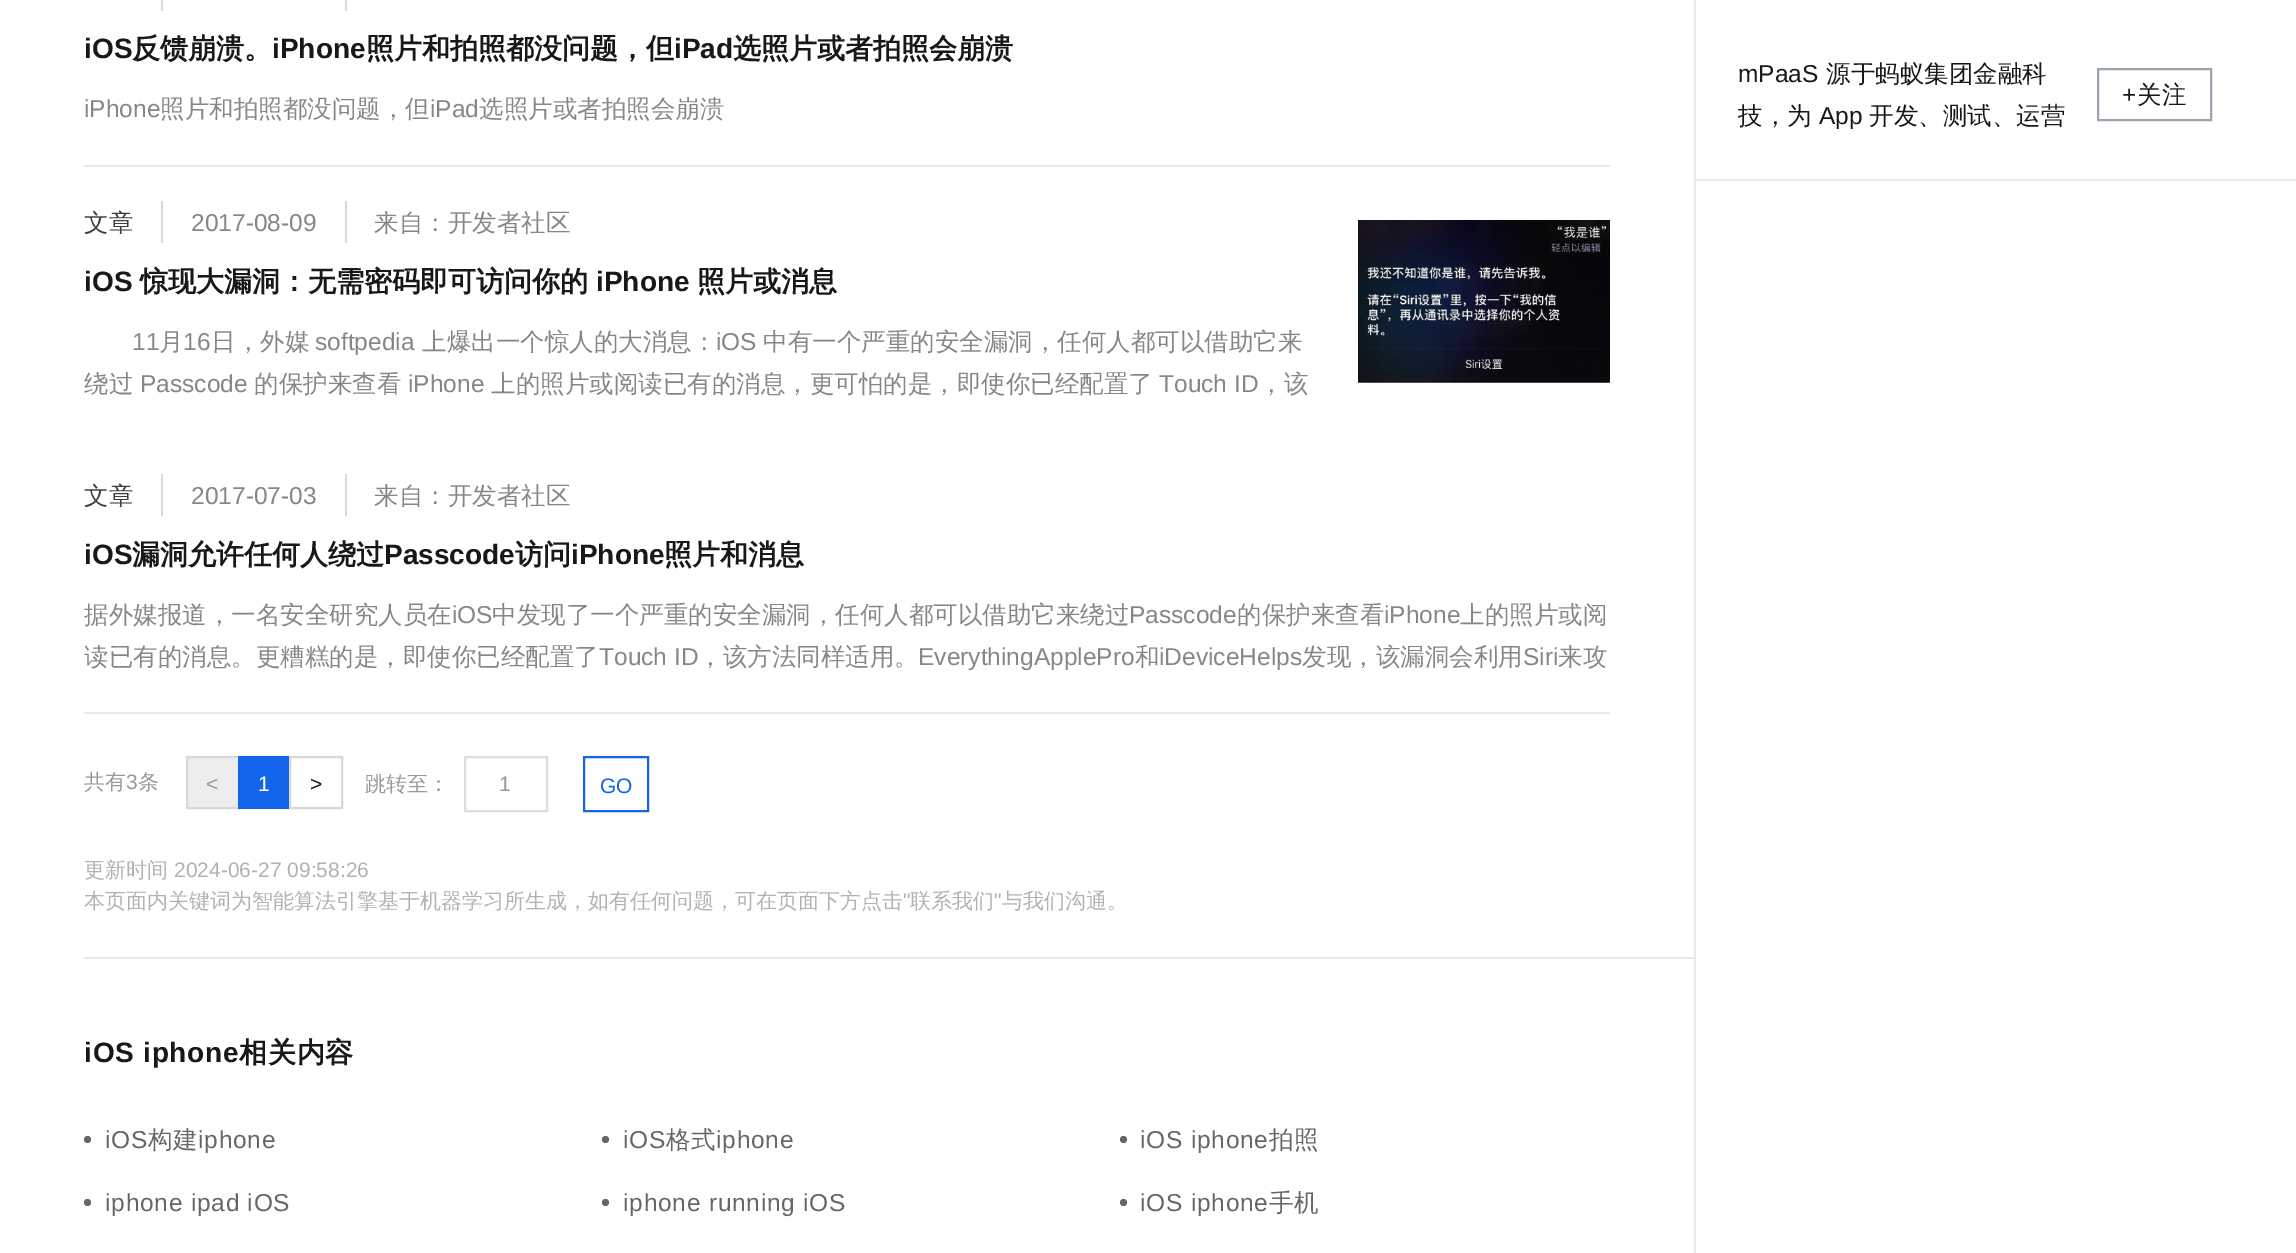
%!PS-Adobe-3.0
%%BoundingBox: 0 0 2296 1253
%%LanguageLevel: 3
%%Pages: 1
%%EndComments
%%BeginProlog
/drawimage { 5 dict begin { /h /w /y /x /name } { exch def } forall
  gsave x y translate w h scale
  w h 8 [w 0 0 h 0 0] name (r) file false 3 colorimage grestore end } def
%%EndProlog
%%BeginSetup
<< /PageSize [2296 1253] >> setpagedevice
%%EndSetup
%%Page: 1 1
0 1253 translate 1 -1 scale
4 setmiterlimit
1 setgray
0 0 2296 1253 rectfill
0.914 setgray
1694 0 2 1253 rectfill
84 165 1526 2 rectfill
0.843 0.847 0.851 setrgbcolor
161 0 2 11 rectfill
345 0 2 11 rectfill
161 201 2 42 rectfill
345 201 2 42 rectfill
(images/1.raw) 1358 220 252 163 drawimage
0.914 setgray
84 712 1526 2 rectfill
0.843 0.847 0.851 setrgbcolor
161 474 2 42 rectfill
345 474 2 42 rectfill
0.929 setgray
newpath 187 757 moveto 239 757 lineto 239 808 lineto 187 808 lineto closepath gsave fill grestore
0.847 setgray
2 setlinewidth
stroke
0.075 0.4 0.925 setrgbcolor
238 756 51 53 rectfill
0.843 0.847 0.851 setrgbcolor
290 757 52 51 rectstroke
0.867 setgray
465 757 82 54 rectstroke
0.075 0.4 0.925 setrgbcolor
584 757 64 54 rectstroke
0.914 setgray
84 957 1610 2 rectfill
0.4 setgray
newpath 87.5 1139.5 3.5 0 360 arc closepath fill
newpath 605.5 1139.5 3.5 0 360 arc closepath fill
newpath 1123.5 1139.5 3.5 0 360 arc closepath fill
newpath 87.5 1202.5 3.5 0 360 arc closepath fill
newpath 605.5 1202.5 3.5 0 360 arc closepath fill
newpath 1123.5 1202.5 3.5 0 360 arc closepath fill
0.914 setgray
1696 179 600 2 rectfill
0.612 0.643 0.686 setrgbcolor
2098 69 113 51 rectstroke
/LiberationSans-Bold [28 0 0 -28 0 0] selectfont
0.094 setgray
84 58 moveto (iOS) show
/WenQuanYiZenHei-Bold [28 0 0 -28 0 0] selectfont
132 58 moveto (反馈崩溃。) show
/LiberationSans-Bold [28 0 0 -28 0 0] selectfont
272 58 moveto (iPhone) show
/WenQuanYiZenHei-Bold [28 0 0 -28 0 0] selectfont
366 58 moveto (照片和拍照都没问题，但) show
/LiberationSans-Bold [28 0 0 -28 0 0] selectfont
674 58 moveto (iPad) show
/WenQuanYiZenHei-Bold [28 0 0 -28 0 0] selectfont
733 58 moveto (选照片或者拍照会崩溃) show
/LiberationSans-Regular [24.5 0 0 -24.5 0 0] selectfont
0.525 setgray
84 117 moveto (iPhone) show
/WenQuanYiZenHei-Medium [24.5 0 0 -24.5 0 0] selectfont
160 117 moveto (照片和拍照都没问题，但) show
/LiberationSans-Regular [24.5 0 0 -24.5 0 0] selectfont
430 117 moveto (iPad) show
/WenQuanYiZenHei-Medium [24.5 0 0 -24.5 0 0] selectfont
479 117 moveto (选照片或者拍照会崩溃) show
0.239 setgray
84 231 moveto (文章) show
/LiberationSans-Regular [24.5 0 0 -24.5 0 0] selectfont
0.525 setgray
191 231 moveto (2017-08-09) show
/WenQuanYiZenHei-Medium [24.5 0 0 -24.5 0 0] selectfont
374 231 moveto (来自：开发者社区) show
/LiberationSans-Bold [28 0 0 -28 0 0] selectfont
0.094 setgray
84 291 moveto (iOS) show
/WenQuanYiZenHei-Bold [28 0 0 -28 0 0] selectfont
140 291 moveto (惊现大漏洞：无需密码即可访问你的) show
/LiberationSans-Bold [28 0 0 -28 0 0] selectfont
596 291 moveto (iPhone) show
/WenQuanYiZenHei-Bold [28 0 0 -28 0 0] selectfont
697 291 moveto (照片或消息) show
/LiberationSans-Regular [24.5 0 0 -24.5 0 0] selectfont
0.525 setgray
132 350 moveto (11) show
/WenQuanYiZenHei-Medium [24.5 0 0 -24.5 0 0] selectfont
159 350 moveto (月) show
/LiberationSans-Regular [24.5 0 0 -24.5 0 0] selectfont
183 350 moveto (16) show
/WenQuanYiZenHei-Medium [24.5 0 0 -24.5 0 0] selectfont
211 350 moveto (日，外媒) show
/LiberationSans-Regular [24.5 0 0 -24.5 0 0] selectfont
315 350 moveto (softpedia) show
/WenQuanYiZenHei-Medium [24.5 0 0 -24.5 0 0] selectfont
422 350 moveto (上爆出一个惊人的大消息：) show
/LiberationSans-Regular [24.5 0 0 -24.5 0 0] selectfont
716 350 moveto (iOS) show
/WenQuanYiZenHei-Medium [24.5 0 0 -24.5 0 0] selectfont
763 350 moveto (中有一个严重的安全漏洞，任何人都可以借助它来) show
84 392 moveto (绕过) show
/LiberationSans-Regular [24.5 0 0 -24.5 0 0] selectfont
140 392 moveto (Passcode) show
/WenQuanYiZenHei-Medium [24.5 0 0 -24.5 0 0] selectfont
254 392 moveto (的保护来查看) show
/LiberationSans-Regular [24.5 0 0 -24.5 0 0] selectfont
408 392 moveto (iPhone) show
/WenQuanYiZenHei-Medium [24.5 0 0 -24.5 0 0] selectfont
491 392 moveto (上的照片或阅读已有的消息，更可怕的是，即使你已经配置了) show
/LiberationSans-Regular [24.5 0 0 -24.5 0 0] selectfont
1159 392 moveto (Touch ID) show
/WenQuanYiZenHei-Medium [24.5 0 0 -24.5 0 0] selectfont
1259 392 moveto (，该) show
0.239 setgray
84 504 moveto (文章) show
/LiberationSans-Regular [24.5 0 0 -24.5 0 0] selectfont
0.525 setgray
191 504 moveto (2017-07-03) show
/WenQuanYiZenHei-Medium [24.5 0 0 -24.5 0 0] selectfont
374 504 moveto (来自：开发者社区) show
/LiberationSans-Bold [28 0 0 -28 0 0] selectfont
0.094 setgray
84 564 moveto (iOS) show
/WenQuanYiZenHei-Bold [28 0 0 -28 0 0] selectfont
132 564 moveto (漏洞允许任何人绕过) show
/LiberationSans-Bold [28 0 0 -28 0 0] selectfont
384 564 moveto (Passcode) show
/WenQuanYiZenHei-Bold [28 0 0 -28 0 0] selectfont
515 564 moveto (访问) show
/LiberationSans-Bold [28 0 0 -28 0 0] selectfont
571 564 moveto (iPhone) show
/WenQuanYiZenHei-Bold [28 0 0 -28 0 0] selectfont
664 564 moveto (照片和消息) show
/WenQuanYiZenHei-Medium [24.5 0 0 -24.5 0 0] selectfont
0.525 setgray
84 623 moveto (据外媒报道，一名安全研究人员在) show
/LiberationSans-Regular [24.5 0 0 -24.5 0 0] selectfont
452 623 moveto (iOS) show
/WenQuanYiZenHei-Medium [24.5 0 0 -24.5 0 0] selectfont
492 623 moveto (中发现了一个严重的安全漏洞，任何人都可以借助它来绕过) show
/LiberationSans-Regular [24.5 0 0 -24.5 0 0] selectfont
1129 623 moveto (Passcode) show
/WenQuanYiZenHei-Medium [24.5 0 0 -24.5 0 0] selectfont
1237 623 moveto (的保护来查看) show
/LiberationSans-Regular [24.5 0 0 -24.5 0 0] selectfont
1384 623 moveto (iPhone) show
/WenQuanYiZenHei-Medium [24.5 0 0 -24.5 0 0] selectfont
1460 623 moveto (上的照片或阅) show
84 665 moveto (读已有的消息。更糟糕的是，即使你已经配置了) show
/LiberationSans-Regular [24.5 0 0 -24.5 0 0] selectfont
599 665 moveto (Touch ID) show
/WenQuanYiZenHei-Medium [24.5 0 0 -24.5 0 0] selectfont
698 665 moveto (，该方法同样适用。) show
/LiberationSans-Regular [24.5 0 0 -24.5 0 0] selectfont
918 665 moveto (EverythingApplePro) show
/WenQuanYiZenHei-Medium [24.5 0 0 -24.5 0 0] selectfont
1135 665 moveto (和) show
/LiberationSans-Regular [24.5 0 0 -24.5 0 0] selectfont
1159 665 moveto (iDeviceHelps) show
/WenQuanYiZenHei-Medium [24.5 0 0 -24.5 0 0] selectfont
1302 665 moveto (发现，该漏洞会利用) show
/LiberationSans-Regular [24.5 0 0 -24.5 0 0] selectfont
1523 665 moveto (Siri) show
/WenQuanYiZenHei-Medium [24.5 0 0 -24.5 0 0] selectfont
1558 665 moveto (来攻) show
/WenQuanYiZenHei-Medium [21 0 0 -21 0 0] selectfont
0.6 setgray
84 789 moveto (共有) show
/LiberationSans-Regular [21 0 0 -21 0 0] selectfont
126 789 moveto (3) show
/WenQuanYiZenHei-Medium [21 0 0 -21 0 0] selectfont
138 789 moveto (条) show
/LiberationSans-Regular [21 0 0 -21 0 0] selectfont
206 791 moveto (<) show
1 setgray
258 791 moveto (1) show
0.094 setgray
310 791 moveto (>) show
/WenQuanYiZenHei-Medium [21 0 0 -21 0 0] selectfont
0.6 setgray
365 791 moveto (跳转至：) show
/LiberationSans-Regular [21 0 0 -21 0 0] selectfont
499 791 moveto (1) show
0.075 0.4 0.925 setrgbcolor
600 793 moveto (GO) show
/WenQuanYiZenHei-Medium [21 0 0 -21 0 0] selectfont
0.698 setgray
84 877 moveto (更新时间) show
/LiberationSans-Regular [21 0 0 -21 0 0] selectfont
174 877 moveto (2024-06-27 09:58:26) show
/WenQuanYiZenHei-Medium [21 0 0 -21 0 0] selectfont
84 908 moveto (本页面内关键词为智能算法引擎基于机器学习所生成，如有任何问题，可在页面下方点击) show
/LiberationSans-Regular [21 0 0 -21 0 0] selectfont
903 908 moveto (") show
/WenQuanYiZenHei-Medium [21 0 0 -21 0 0] selectfont
910 908 moveto (联系我们) show
/LiberationSans-Regular [21 0 0 -21 0 0] selectfont
994 908 moveto (") show
/WenQuanYiZenHei-Medium [21 0 0 -21 0 0] selectfont
1002 908 moveto (与我们沟通。) show
/LiberationSans-Bold [28 0 0 -28 0 0] selectfont
0.094 setgray
84 1062 moveto 0.75 0 (iOS iphone) ashow
/WenQuanYiZenHei-Bold [28 0 0 -28 0 0] selectfont
239 1062 moveto 0.75 0 (相关内容) ashow
/LiberationSans-Regular [24.5 0 0 -24.5 0 0] selectfont
0.4 setgray
105 1148 moveto 0.75 0 (iOS) ashow
/WenQuanYiZenHei-Medium [24.5 0 0 -24.5 0 0] selectfont
148 1148 moveto 0.75 0 (构建) ashow
/LiberationSans-Regular [24.5 0 0 -24.5 0 0] selectfont
198 1148 moveto 0.75 0 (iphone) ashow
623 1148 moveto 0.75 0 (iOS) ashow
/WenQuanYiZenHei-Medium [24.5 0 0 -24.5 0 0] selectfont
666 1148 moveto 0.75 0 (格式) ashow
/LiberationSans-Regular [24.5 0 0 -24.5 0 0] selectfont
716 1148 moveto 0.75 0 (iphone) ashow
1140 1148 moveto 0.75 0 (iOS iphone) ashow
/WenQuanYiZenHei-Medium [24.5 0 0 -24.5 0 0] selectfont
1269 1148 moveto 0.75 0 (拍照) ashow
/LiberationSans-Regular [24.5 0 0 -24.5 0 0] selectfont
105 1211 moveto 0.75 0 (iphone ipad iOS) ashow
623 1211 moveto 0.75 0 (iphone running iOS) ashow
1140 1211 moveto 0.75 0 (iOS iphone) ashow
/WenQuanYiZenHei-Medium [24.5 0 0 -24.5 0 0] selectfont
1269 1211 moveto 0.75 0 (手机) ashow
/LiberationSans-Regular [24.5 0 0 -24.5 0 0] selectfont
0.094 setgray
1738 82 moveto (mPaaS) show
/WenQuanYiZenHei-Medium [24.5 0 0 -24.5 0 0] selectfont
1826 82 moveto (源于蚂蚁集团金融科) show
1738 124 moveto (技，为) show
/LiberationSans-Regular [24.5 0 0 -24.5 0 0] selectfont
1819 124 moveto (App) show
/WenQuanYiZenHei-Medium [24.5 0 0 -24.5 0 0] selectfont
1869 124 moveto (开发、测试、运营) show
/LiberationSans-Regular [24.5 0 0 -24.5 0 0] selectfont
2122 103 moveto (+) show
/WenQuanYiZenHei-Medium [24.5 0 0 -24.5 0 0] selectfont
2137 103 moveto (关注) show
showpage
%%EOF
